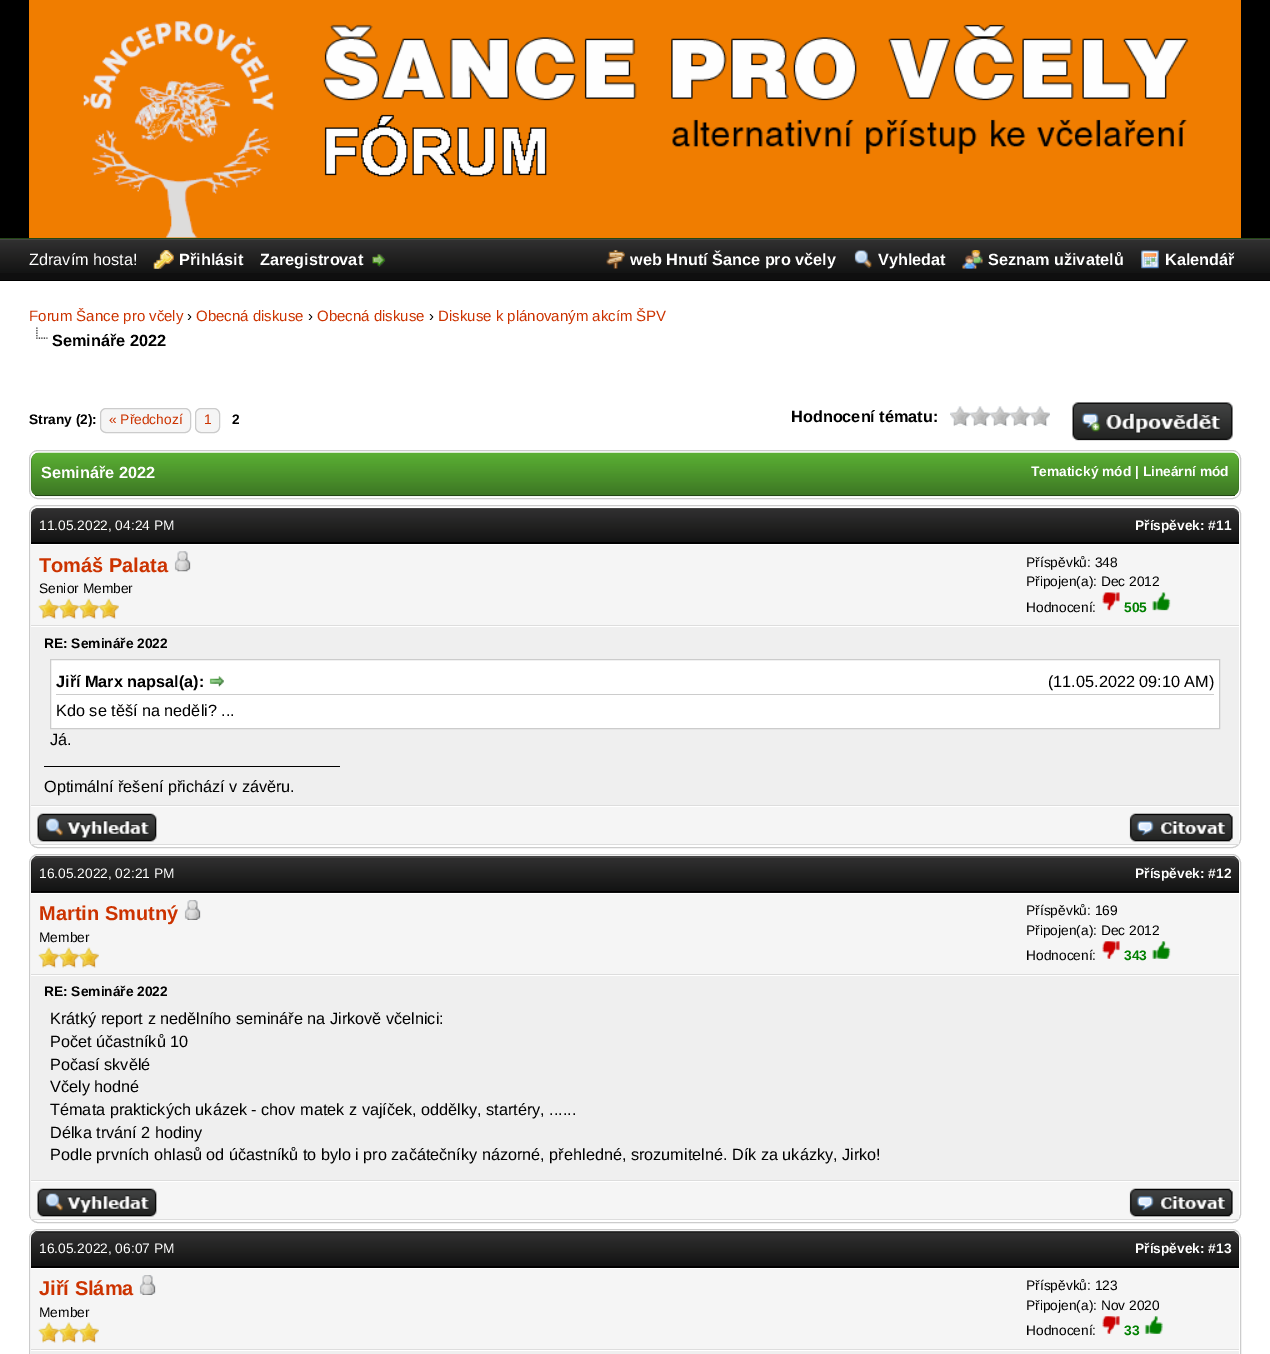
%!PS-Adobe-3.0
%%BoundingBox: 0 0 1270 1354
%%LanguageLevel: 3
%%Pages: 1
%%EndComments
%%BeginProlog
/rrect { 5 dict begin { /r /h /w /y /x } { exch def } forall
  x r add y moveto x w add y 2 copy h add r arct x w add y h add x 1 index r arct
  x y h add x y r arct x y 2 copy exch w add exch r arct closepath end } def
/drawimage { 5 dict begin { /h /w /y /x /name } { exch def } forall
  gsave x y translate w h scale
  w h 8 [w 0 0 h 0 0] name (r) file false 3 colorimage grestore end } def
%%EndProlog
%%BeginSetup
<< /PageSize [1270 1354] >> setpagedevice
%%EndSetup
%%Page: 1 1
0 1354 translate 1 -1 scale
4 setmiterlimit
0 setgray
0 0 1270 1354 rectfill
0.137 0.275 0.082 setrgbcolor
0 238 1270 1 rectfill
0.941 0.49 0 setrgbcolor
29 0 1212 238 rectfill
(images/1.raw) 83 21 1106 217 drawimage
0.059 setgray
0 273 1270 7 rectfill
(images/2.raw) 0 240 1270 33 drawimage
0.267 setgray
0 239 1270 1 rectfill
(images/3.raw) 153 250 21 19 drawimage
(images/4.raw) 372 254 14 13 drawimage
(images/5.raw) 606 250 19 19 drawimage
(images/6.raw) 854 250 18 19 drawimage
(images/7.raw) 962 250 21 19 drawimage
(images/8.raw) 1141 250 18 19 drawimage
1 setgray
0 281 1270 1073 rectfill
(images/9.raw) 36 327 12 12 drawimage
0.961 setgray
100.5 408.5 90 24 5.5 rrect gsave fill grestore
0.8 setgray
stroke
0.961 setgray
195.5 408.5 24 24 5.5 rrect gsave fill grestore
0.8 setgray
stroke
(images/10.raw) 950 406 100 21 drawimage
(images/11.raw) 1072 402 161 39 drawimage
29.5 450.5 1211 48 8.5 rrect stroke
0.22 0.431 0.129 setrgbcolor
31 453 1208 43 8 rrect fill
(images/12.raw) 31 452 1208 45 drawimage
0.137 0.275 0.082 setrgbcolor
35 495 1200 1 rectfill
0.8 setgray
29.5 505.5 1211 342 8.5 rrect stroke
0.059 setgray
newpath 39 508 moveto 1231 508 lineto 1235.5 508 1239 511.5 1239 516 curveto 1239 544 lineto 31 544 lineto 31 516 lineto 31 511.5 34.5 508 39 508 curveto closepath fill
(images/13.raw) 31 508 1208 34 drawimage
0.267 setgray
newpath 39 508 moveto 1231 508 lineto 1234 508 1239 510 1239 514 curveto 1238 511 1234 509 1231 509 curveto 39 509 lineto 36 509 32 511 31 514 curveto 31 510 36 508 39 508 curveto closepath fill
0 setgray
31 542 1208 2 rectfill
0.961 setgray
31 545 1208 80 rectfill
0.867 setgray
31 625 1208 1 rectfill
(images/14.raw) 174 551 17 21 drawimage
(images/15.raw) 38 598 21 21 drawimage
(images/16.raw) 58 598 21 21 drawimage
(images/16.raw) 78 598 21 21 drawimage
(images/17.raw) 98 598 21 21 drawimage
(images/18.raw) 1102 592 18 19 drawimage
(images/19.raw) 1152 592 19 19 drawimage
0.937 setgray
31 627 1208 178 rectfill
0.867 setgray
31 805 1208 1 rectfill
1 setgray
newpath 50.5 659.5 moveto 1219.5 659.5 lineto 1219.5 728.5 lineto 50.5 728.5 lineto closepath gsave fill grestore
0.8 setgray
stroke
56 694 1158 1 rectfill
(images/20.raw) 209 676 15 11 drawimage
0 setgray
44 766 296 1 rectfill
0.961 setgray
31 807 1208 37 rectfill
0.867 setgray
31 844 1208 1 rectfill
(images/21.raw) 37 813 120 29 drawimage
(images/22.raw) 1129 813 104 29 drawimage
0.8 setgray
29.5 854.5 1211 368 8.5 rrect stroke
0.059 setgray
newpath 39 856 moveto 1231 856 lineto 1235.5 856 1239 859.5 1239 864 curveto 1239 893 lineto 31 893 lineto 31 864 lineto 31 859.5 34.5 856 39 856 curveto closepath fill
(images/23.raw) 31 857 1208 34 drawimage
0.267 setgray
newpath 39 858 moveto 36 858 32 859 31 862 curveto 31 860 35 856 37 856 curveto 1233 856 lineto 1235 856 1239 860 1239 862 curveto 1238 859 1234 858 1231 858 curveto closepath fill
0 setgray
31 891 1208 1 rectfill
0.961 setgray
31 894 1208 80 rectfill
0.867 setgray
31 974 1208 1 rectfill
(images/24.raw) 184 900 17 20 drawimage
(images/25.raw) 38 947 21 21 drawimage
(images/26.raw) 58 947 21 21 drawimage
(images/26.raw) 78 947 21 21 drawimage
(images/27.raw) 1102 941 18 18 drawimage
(images/28.raw) 1152 941 19 18 drawimage
0.937 setgray
31 976 1208 204 rectfill
0.867 setgray
31 1180 1208 1 rectfill
0.961 setgray
31 1182 1208 37 rectfill
0.867 setgray
31 1219 1208 1 rectfill
(images/21.raw) 37 1188 120 29 drawimage
(images/22.raw) 1129 1188 104 29 drawimage
0.8 setgray
29.5 1229.5 1211 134 8.5 rrect stroke
0.059 setgray
newpath 39 1231 moveto 1231 1231 lineto 1235.5 1231 1239 1234.5 1239 1239 curveto 1239 1268 lineto 31 1268 lineto 31 1239 lineto 31 1234.5 34.5 1231 39 1231 curveto closepath fill
(images/23.raw) 31 1232 1208 34 drawimage
0.267 setgray
newpath 39 1232 moveto 36 1232 32 1234 31 1237 curveto 31 1235 35 1231 37 1231 curveto 1233 1231 lineto 1235 1231 1239 1235 1239 1237 curveto 1238 1234 1234 1232 1231 1232 curveto closepath fill
0 setgray
31 1266 1208 2 rectfill
0.961 setgray
31 1269 1208 80 rectfill
0.867 setgray
31 1349 1208 1 rectfill
(images/24.raw) 139 1275 17 20 drawimage
(images/25.raw) 38 1322 21 21 drawimage
(images/26.raw) 58 1322 21 21 drawimage
(images/26.raw) 78 1322 21 21 drawimage
(images/27.raw) 1102 1316 18 18 drawimage
(images/29.raw) 1144 1316 19 18 drawimage
0.937 setgray
31 1351 1208 3 rectfill
/LiberationSans-Regular [16.25 0 0 -16.25 0 0] selectfont
1 setgray
29 265 moveto (Zdravím hosta!) show
/LiberationSans-Bold [16.25 0 0 -16.25 0 0] selectfont
179 265 moveto (Přihlásit) show
260 265 moveto (Zaregistrovat) show
630 265 moveto (web Hnutí Šance pro včely) show
878 265 moveto (Vyhledat) show
988 265 moveto (Seznam uživatelů) show
1165 265 moveto (Kalendář) show
/LiberationSans-Regular [15 0 0 -15 0 0] selectfont
0.8 0.2 0 setrgbcolor
29 321 moveto (Forum Šance pro včely) show
0 setgray
187 321 moveto (›) show
0.8 0.2 0 setrgbcolor
196 321 moveto (Obecná diskuse) show
0 setgray
308 321 moveto (›) show
0.8 0.2 0 setrgbcolor
317 321 moveto (Obecná diskuse) show
0 setgray
429 321 moveto (›) show
0.8 0.2 0 setrgbcolor
438 321 moveto (Diskuse k plánovaným akcím ŠPV) show
/LiberationSans-Bold [16.25 0 0 -16.25 0 0] selectfont
0 setgray
52 346 moveto (Semináře 2022) show
/LiberationSans-Bold [13.75 0 0 -13.75 0 0] selectfont
29 424 moveto (Strany \(2\):) show
/LiberationSans-Regular [13.75 0 0 -13.75 0 0] selectfont
0.8 0.2 0 setrgbcolor
109 424 moveto (« Předchozí) show
204 424 moveto (1) show
/LiberationSans-Bold [13.75 0 0 -13.75 0 0] selectfont
0 setgray
232 424 moveto (2) show
/LiberationSans-Bold [16.25 0 0 -16.25 0 0] selectfont
791 422 moveto (Hodnocení tématu:) show
1 setgray
41 478 moveto (Semináře 2022) show
/LiberationSans-Bold [13.75 0 0 -13.75 0 0] selectfont
1031 476 moveto (Tematický mód | Lineární mód) show
/LiberationSans-Regular [13.75 0 0 -13.75 0 0] selectfont
39 530 moveto (11.05.2022, 04:24 PM) show
/LiberationSans-Bold [13.75 0 0 -13.75 0 0] selectfont
1135 530 moveto (Příspěvek: #11) show
/LiberationSans-Bold [20 0 0 -20 0 0] selectfont
0.8 0.2 0 setrgbcolor
39 572 moveto (Tomáš Palata) show
/LiberationSans-Regular [13.75 0 0 -13.75 0 0] selectfont
0 setgray
39 593 moveto (Senior Member) show
1026 567 moveto (Příspěvků: 348) show
1026 586 moveto (Připojen\(a\): Dec 2012) show
1026 612 moveto (Hodnocení:) show
/LiberationSans-Bold [13.75 0 0 -13.75 0 0] selectfont
0 0.502 0 setrgbcolor
1124 612 moveto (505) show
0 setgray
44 648 moveto (RE: Semináře 2022) show
/LiberationSans-Bold [16.25 0 0 -16.25 0 0] selectfont
56 687 moveto (Jiří Marx napsal\(a\):) show
/LiberationSans-Regular [16.25 0 0 -16.25 0 0] selectfont
1048 687 moveto (\(11.05.2022 09:10 AM\)) show
56 716 moveto (Kdo se těší na neděli? ...) show
50 745 moveto (Já.) show
44 792 moveto (Optimální řešení přichází v závěru.) show
/LiberationSans-Regular [13.75 0 0 -13.75 0 0] selectfont
1 setgray
39 878 moveto (16.05.2022, 02:21 PM) show
/LiberationSans-Bold [13.75 0 0 -13.75 0 0] selectfont
1135 878 moveto (Příspěvek: #12) show
/LiberationSans-Bold [20 0 0 -20 0 0] selectfont
0.8 0.2 0 setrgbcolor
39 920 moveto (Martin Smutný) show
/LiberationSans-Regular [13.75 0 0 -13.75 0 0] selectfont
0 setgray
39 942 moveto (Member) show
1026 915 moveto (Příspěvků: 169) show
1026 935 moveto (Připojen\(a\): Dec 2012) show
1026 960 moveto (Hodnocení:) show
/LiberationSans-Bold [13.75 0 0 -13.75 0 0] selectfont
0 0.502 0 setrgbcolor
1124 960 moveto (343) show
0 setgray
44 996 moveto (RE: Semináře 2022) show
/LiberationSans-Regular [16.25 0 0 -16.25 0 0] selectfont
50 1024 moveto (Krátký report z nedělního semináře na Jirkově včelnici:) show
50 1047 moveto (Počet účastníků 10) show
50 1070 moveto (Počasí skvělé) show
50 1092 moveto (Včely hodné) show
50 1115 moveto (Témata praktických ukázek - chov matek z vajíček, oddělky, startéry, ......) show
50 1138 moveto (Délka trvání 2 hodiny) show
50 1160 moveto (Podle prvních ohlasů od účastníků to bylo i pro začátečníky názorné, přehledné, srozumitelné. Dík za ukázky, Jirko!) show
/LiberationSans-Regular [13.75 0 0 -13.75 0 0] selectfont
1 setgray
39 1253 moveto (16.05.2022, 06:07 PM) show
/LiberationSans-Bold [13.75 0 0 -13.75 0 0] selectfont
1135 1253 moveto (Příspěvek: #13) show
/LiberationSans-Bold [20 0 0 -20 0 0] selectfont
0.8 0.2 0 setrgbcolor
39 1295 moveto (Jiří Sláma) show
/LiberationSans-Regular [13.75 0 0 -13.75 0 0] selectfont
0 setgray
39 1317 moveto (Member) show
1026 1290 moveto (Příspěvků: 123) show
1026 1310 moveto (Připojen\(a\): Nov 2020) show
1026 1335 moveto (Hodnocení:) show
/LiberationSans-Bold [13.75 0 0 -13.75 0 0] selectfont
0 0.502 0 setrgbcolor
1124 1335 moveto (33) show
showpage
%%EOF
